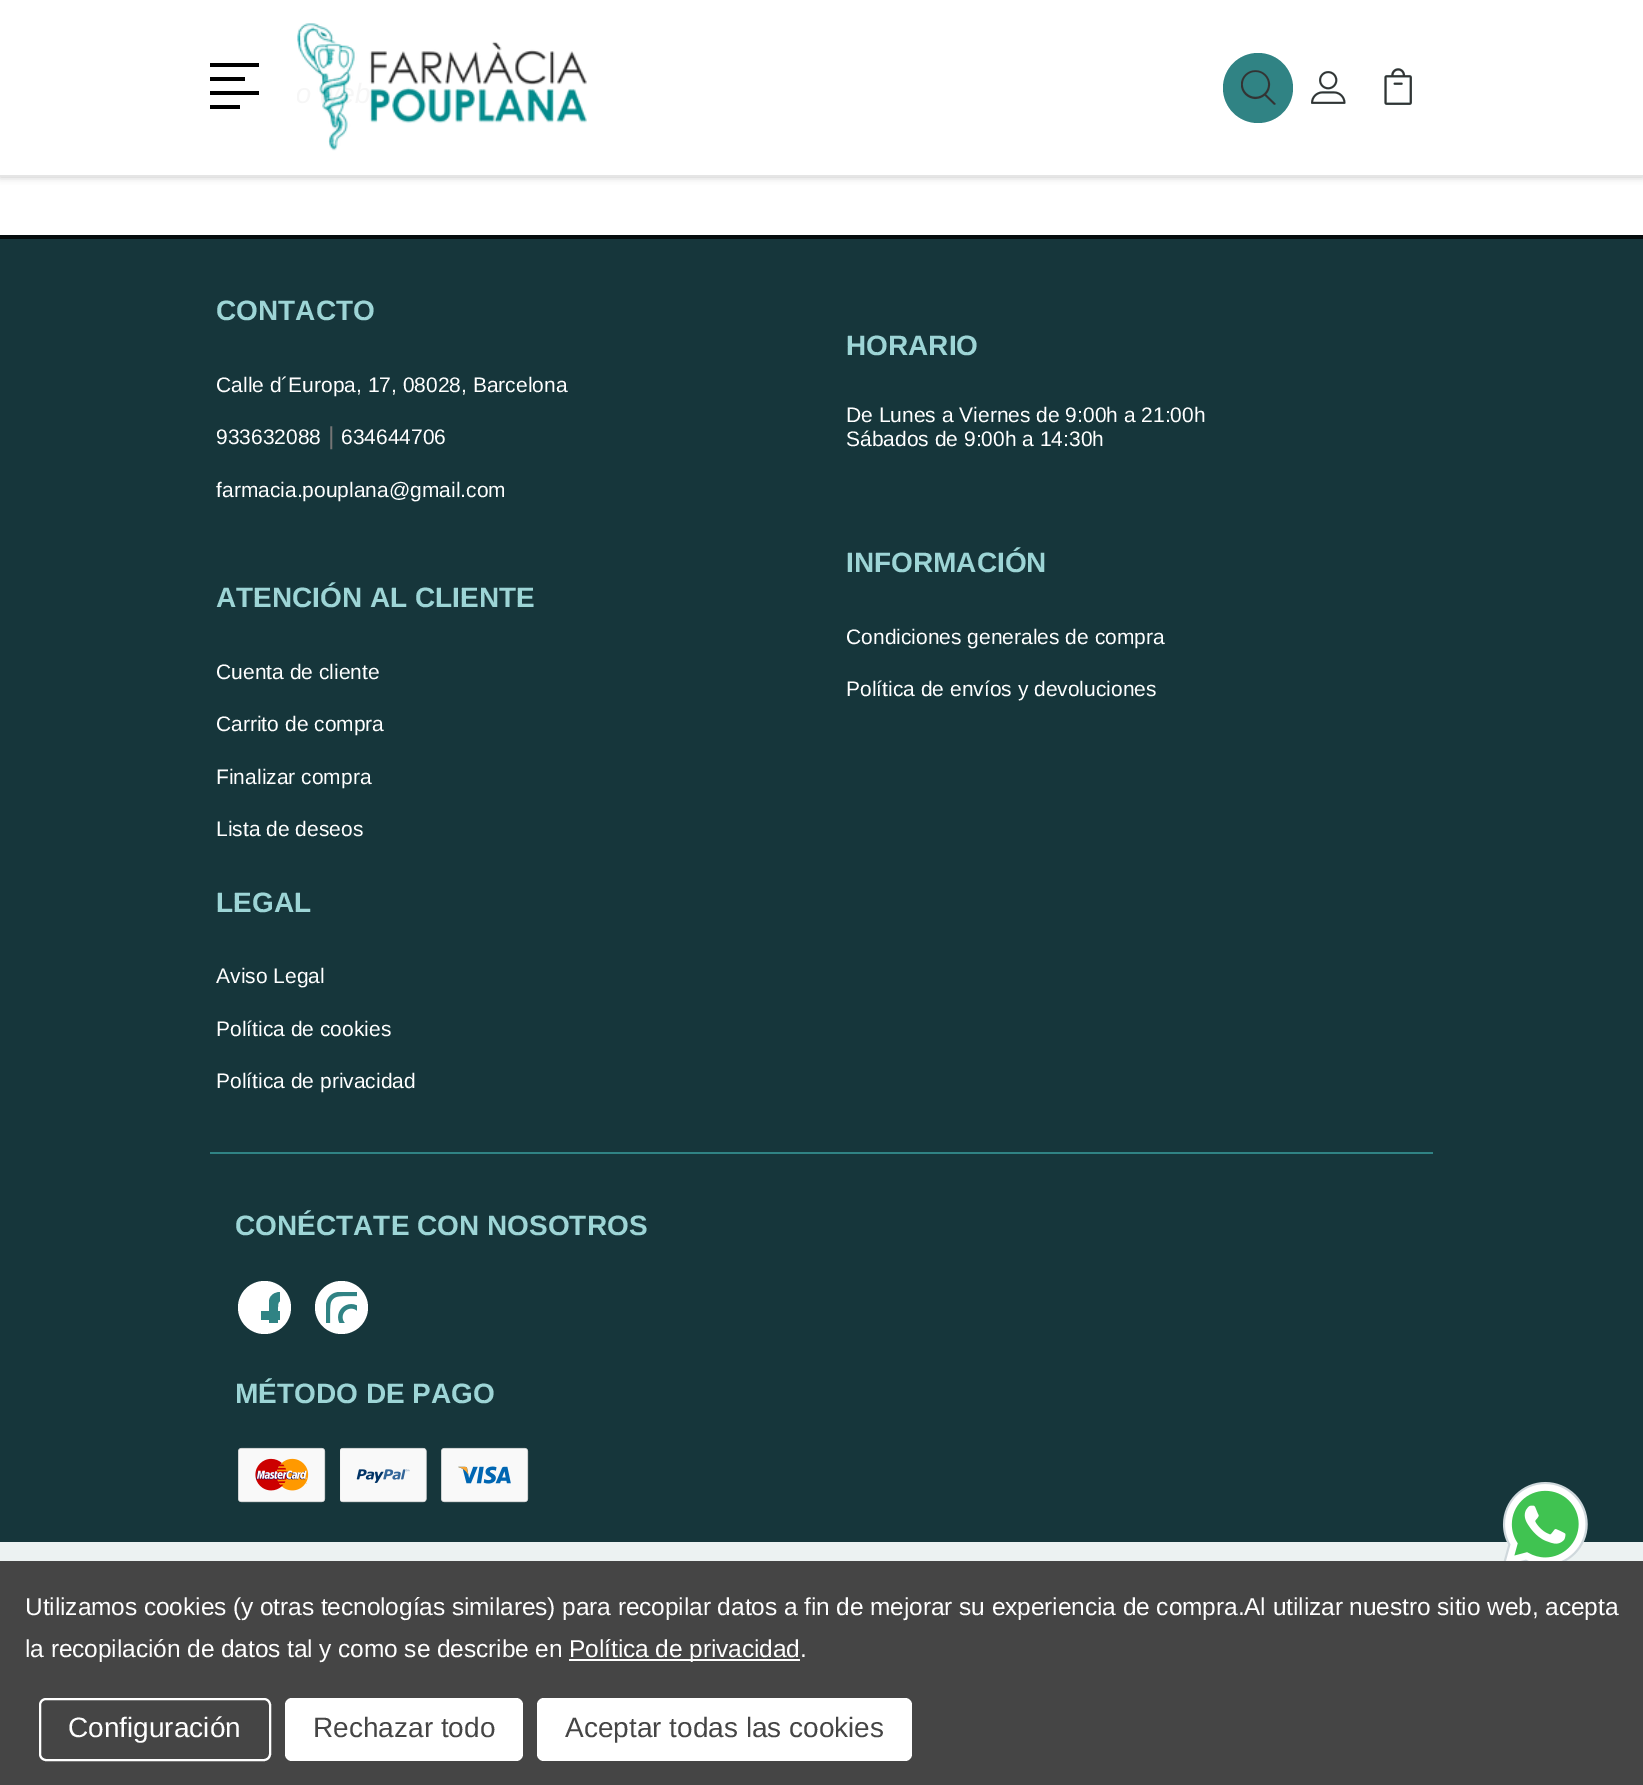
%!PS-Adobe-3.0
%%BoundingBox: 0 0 1643 1785
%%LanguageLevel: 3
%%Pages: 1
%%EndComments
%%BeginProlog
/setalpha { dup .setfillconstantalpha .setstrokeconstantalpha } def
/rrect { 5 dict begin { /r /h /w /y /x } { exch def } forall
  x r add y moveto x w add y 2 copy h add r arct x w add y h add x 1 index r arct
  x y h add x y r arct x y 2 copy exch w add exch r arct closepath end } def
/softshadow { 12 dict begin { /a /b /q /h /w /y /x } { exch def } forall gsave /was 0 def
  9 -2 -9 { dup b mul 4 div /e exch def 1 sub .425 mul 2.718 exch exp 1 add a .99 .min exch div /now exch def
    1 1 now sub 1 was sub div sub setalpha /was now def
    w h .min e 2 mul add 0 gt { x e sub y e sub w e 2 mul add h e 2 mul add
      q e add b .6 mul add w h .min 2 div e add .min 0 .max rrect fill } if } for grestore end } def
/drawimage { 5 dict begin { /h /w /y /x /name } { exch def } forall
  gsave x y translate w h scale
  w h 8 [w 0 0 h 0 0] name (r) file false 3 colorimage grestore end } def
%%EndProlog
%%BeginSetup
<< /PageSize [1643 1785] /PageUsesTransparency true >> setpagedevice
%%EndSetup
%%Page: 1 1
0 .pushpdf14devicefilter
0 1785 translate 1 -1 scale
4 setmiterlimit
1 setgray
0 0 1643 1785 rectfill
0.4 setgray
0 0 1643 177 0 3.5 0.4 softshadow
1 setgray
0 0 1643 175 rectfill
0 setgray
210 63 49 4 rectfill
210 77 35 4 rectfill
210 91 49 4 rectfill
210 105 30 4 rectfill
(images/1.raw) 297 23 290 128 drawimage
0.188 0.514 0.518 setrgbcolor
newpath 1258 88 35 0 360 arc closepath fill
(images/2.raw) 1241 70 35 35 drawimage
(images/3.raw) 1311 71 35 33 drawimage
(images/4.raw) 1384 68 28 37 drawimage
0.898 setgray
0 175 1643 2 rectfill
0.086 0.212 0.231 setrgbcolor
0 239 1643 1303 rectfill
0.02 0.047 0.051 setrgbcolor
0 235 1643 4 rectfill
0.188 0.514 0.518 setrgbcolor
210 1152 1223 2 rectfill
1 setgray
newpath 264.5 1307.5 26.5 0 360 arc closepath fill
gsave
249 1292 31 31 rectclip
0.188 0.514 0.518 setrgbcolor
newpath 278 1330 moveto 275 1332 272 1333 269 1334 curveto 269 1320 lineto 261 1320 lineto 261 1311 lineto 269 1311 lineto 269 1301 lineto 270 1293 278 1291 286 1292 curveto 288 1295 288 1296 288 1300 curveto 277 1300 278 1302 278 1311 curveto 287 1311 lineto 286 1320 lineto 278 1320 lineto closepath fill
grestore
newpath 341.5 1307.5 26.5 0 360 arc closepath fill
(images/5.raw) 326 1292 31 31 drawimage
(images/6.raw) 238 1447 88 56 drawimage
(images/7.raw) 340 1447 87 56 drawimage
(images/8.raw) 441 1447 88 56 drawimage
0.925 0.949 0.949 setrgbcolor
0 1542 1643 19 rectfill
(images/9.raw) 1502 1481 86 80 drawimage
0.271 setgray
0 1561 1643 224 rectfill
1 setgray
569 1659 231 2 rectfill
2 setlinewidth
40 1699 230 61 6 rrect stroke
285 1698 238 63 7 rrect fill
537 1698 375 63 7 rrect fill
/LiberationSans-Bold [28 0 0 -28 0 0] selectfont
0.616 0.835 0.839 setrgbcolor
216 320 moveto (CONTACTO) show
/LiberationSans-Regular [21 0 0 -21 0 0] selectfont
1 setgray
216 392 moveto (Calle d´Europa, 17, 08028, Barcelona) show
216 444 moveto (933632088) show
/LiberationSans-Regular [24.5 0 0 -24.5 0 0] selectfont
0.459 setgray
328 444 moveto (|) show
/LiberationSans-Regular [21 0 0 -21 0 0] selectfont
1 setgray
341 444 moveto (634644706) show
216 497 moveto (farmacia.pouplana@gmail.com) show
/LiberationSans-Bold [28 0 0 -28 0 0] selectfont
0.616 0.835 0.839 setrgbcolor
846 355 moveto (HORARIO) show
/LiberationSans-Regular [21 0 0 -21 0 0] selectfont
1 setgray
846 422 moveto (De Lunes a Viernes de 9:00h a 21:00h) show
846 446 moveto (Sábados de 9:00h a 14:30h) show
/LiberationSans-Bold [28 0 0 -28 0 0] selectfont
0.616 0.835 0.839 setrgbcolor
216 607 moveto (ATENCIÓN AL CLIENTE) show
/LiberationSans-Regular [21 0 0 -21 0 0] selectfont
1 setgray
216 679 moveto (Cuenta de cliente) show
216 731 moveto (Carrito de compra) show
216 784 moveto (Finalizar compra) show
216 836 moveto (Lista de deseos) show
/LiberationSans-Bold [28 0 0 -28 0 0] selectfont
0.616 0.835 0.839 setrgbcolor
846 572 moveto (INFORMACIÓN) show
/LiberationSans-Regular [21 0 0 -21 0 0] selectfont
1 setgray
846 644 moveto (Condiciones generales de compra) show
846 696 moveto (Política de envíos y devoluciones) show
/LiberationSans-Bold [28 0 0 -28 0 0] selectfont
0.616 0.835 0.839 setrgbcolor
216 912 moveto (LEGAL) show
/LiberationSans-Regular [21 0 0 -21 0 0] selectfont
1 setgray
216 983 moveto (Aviso Legal) show
216 1036 moveto (Política de cookies) show
216 1088 moveto (Política de privacidad) show
/LiberationSans-Bold [28 0 0 -28 0 0] selectfont
0.616 0.835 0.839 setrgbcolor
235 1235 moveto (CONÉCTATE CON NOSOTROS) show
235 1403 moveto (MÉTODO DE PAGO) show
/LiberationSans-Regular [24.5 0 0 -24.5 0 0] selectfont
1 setgray
25 1615 moveto -0.09 0 (Utilizamos cookies \(y otras tecnologías similares\) para recopilar datos a fin de mejorar su experiencia de compra.Al utilizar nuestro sitio web, acepta) ashow
25 1657 moveto -0.09 0 (la recopilación de datos tal y como se describe en) ashow
569 1657 moveto -0.09 0 (Política de privacidad.) ashow
/LiberationSans-Regular [28 0 0 -28 0 0] selectfont
68 1737 moveto (Configuración) show
0.271 setgray
313 1737 moveto (Rechazar todo) show
565 1737 moveto (Aceptar todas las cookies) show
.poppdf14devicefilter showpage
%%EOF
